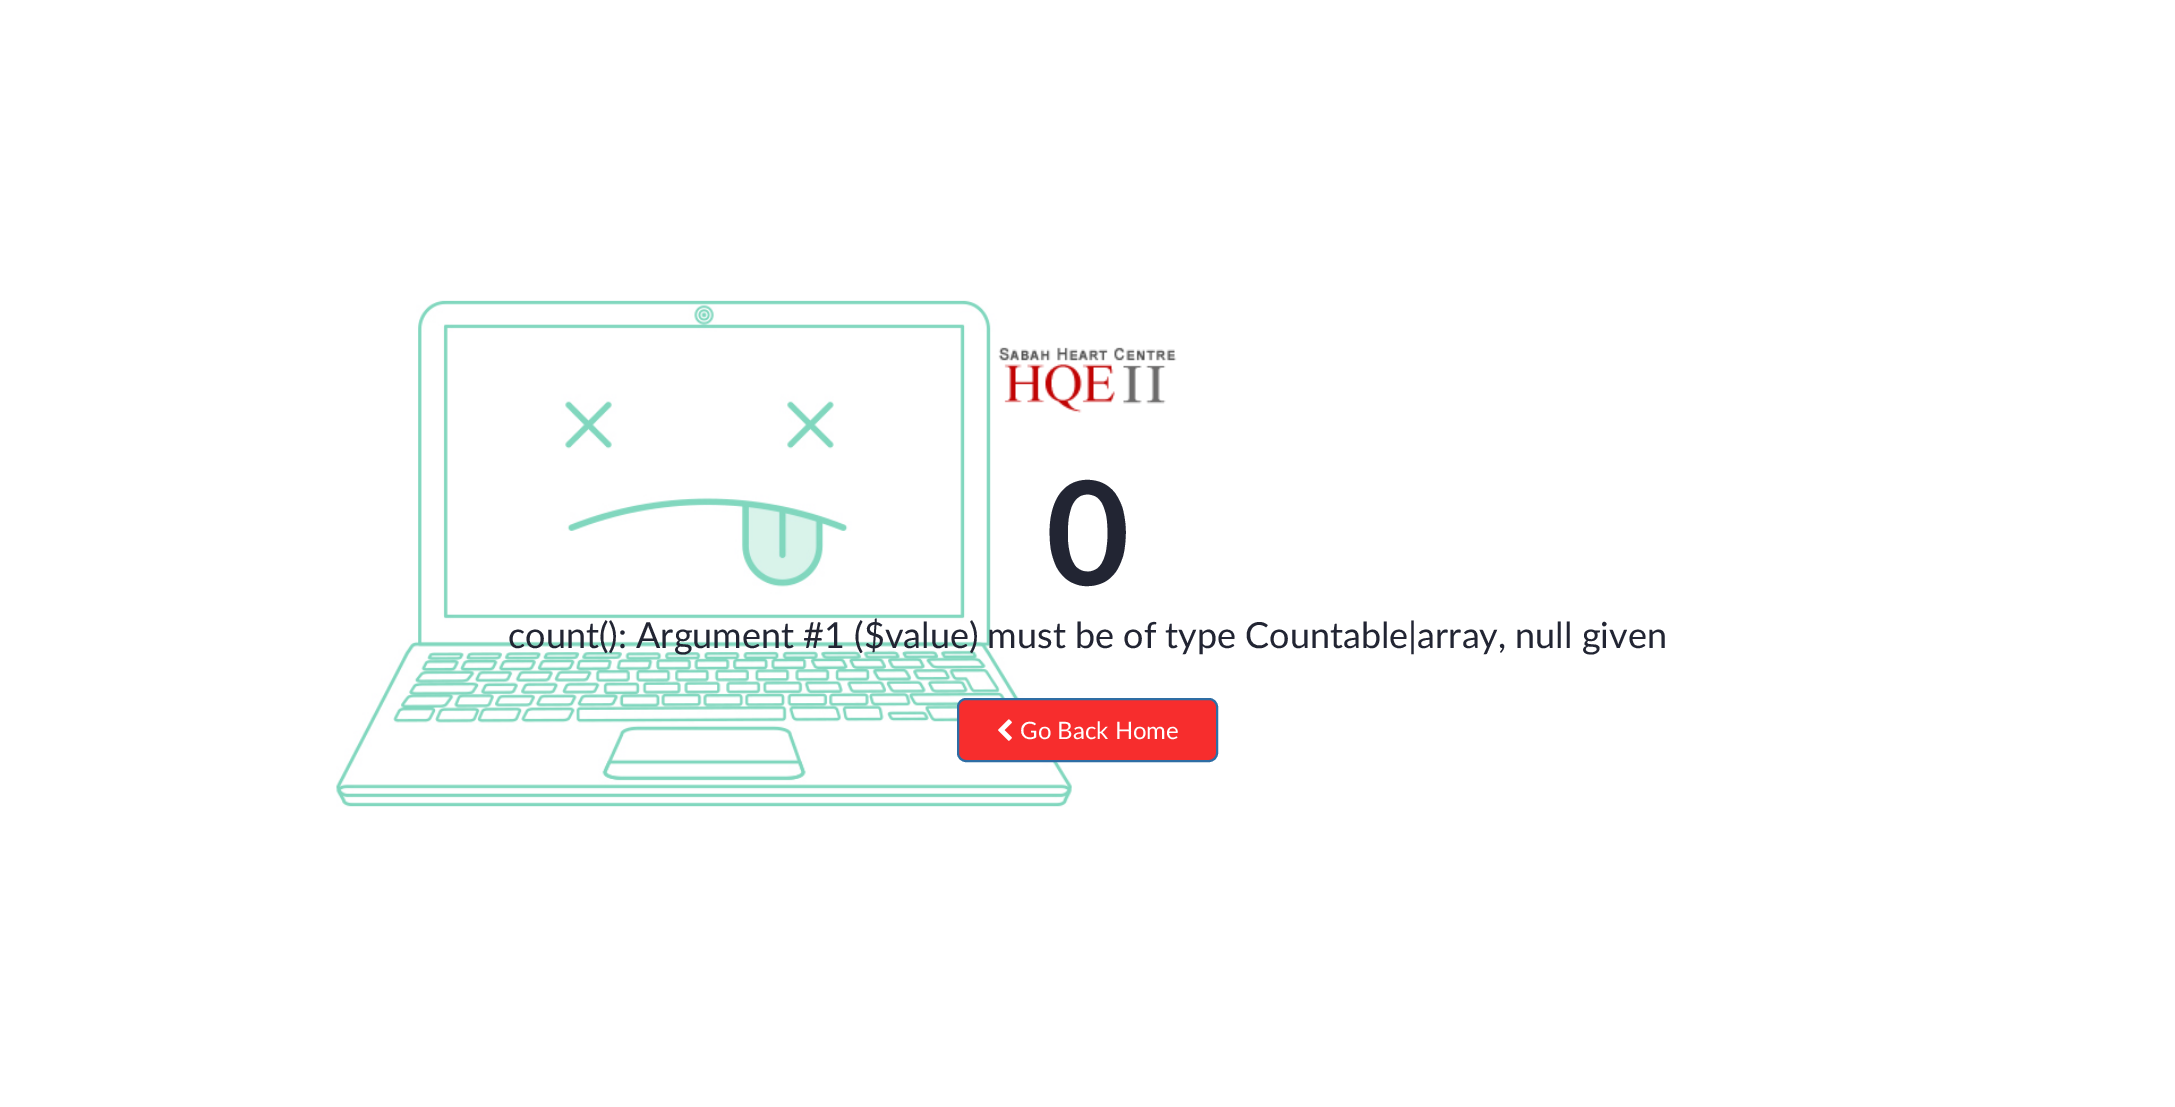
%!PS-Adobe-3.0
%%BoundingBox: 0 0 2175 1107
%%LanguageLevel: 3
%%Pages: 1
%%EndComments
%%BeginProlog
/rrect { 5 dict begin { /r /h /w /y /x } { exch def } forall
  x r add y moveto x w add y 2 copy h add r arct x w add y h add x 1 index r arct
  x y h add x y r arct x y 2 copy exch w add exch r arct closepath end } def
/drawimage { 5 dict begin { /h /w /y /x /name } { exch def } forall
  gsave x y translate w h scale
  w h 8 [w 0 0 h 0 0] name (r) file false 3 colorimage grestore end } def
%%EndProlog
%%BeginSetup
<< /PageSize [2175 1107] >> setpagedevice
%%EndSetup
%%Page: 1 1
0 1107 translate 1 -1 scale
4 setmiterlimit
1 setgray
0 0 2175 1107 rectfill
(images/1.raw) 336 300 736 507 drawimage
(images/2.raw) 998 347 179 66 drawimage
0.969 0.176 0.176 setrgbcolor
958 699 259 62 8 rrect gsave fill grestore
0.18 0.427 0.643 setrgbcolor
2 setlinewidth
stroke
(images/3.raw) 998 719 14 22 drawimage
/Lato-Bold [144 0 0 -144 0 0] selectfont
0.133 0.145 0.2 setrgbcolor
1046 585 moveto (0) show
/Lato-Regular [36 0 0 -36 0 0] selectfont
508 648 moveto (count\(\): Argument #1 \($value\) must be of type Countable|array, null given) show
/Lato-Regular [24 0 0 -24 0 0] selectfont
1 setgray
1020 739 moveto (Go Back Home) show
showpage
%%EOF
